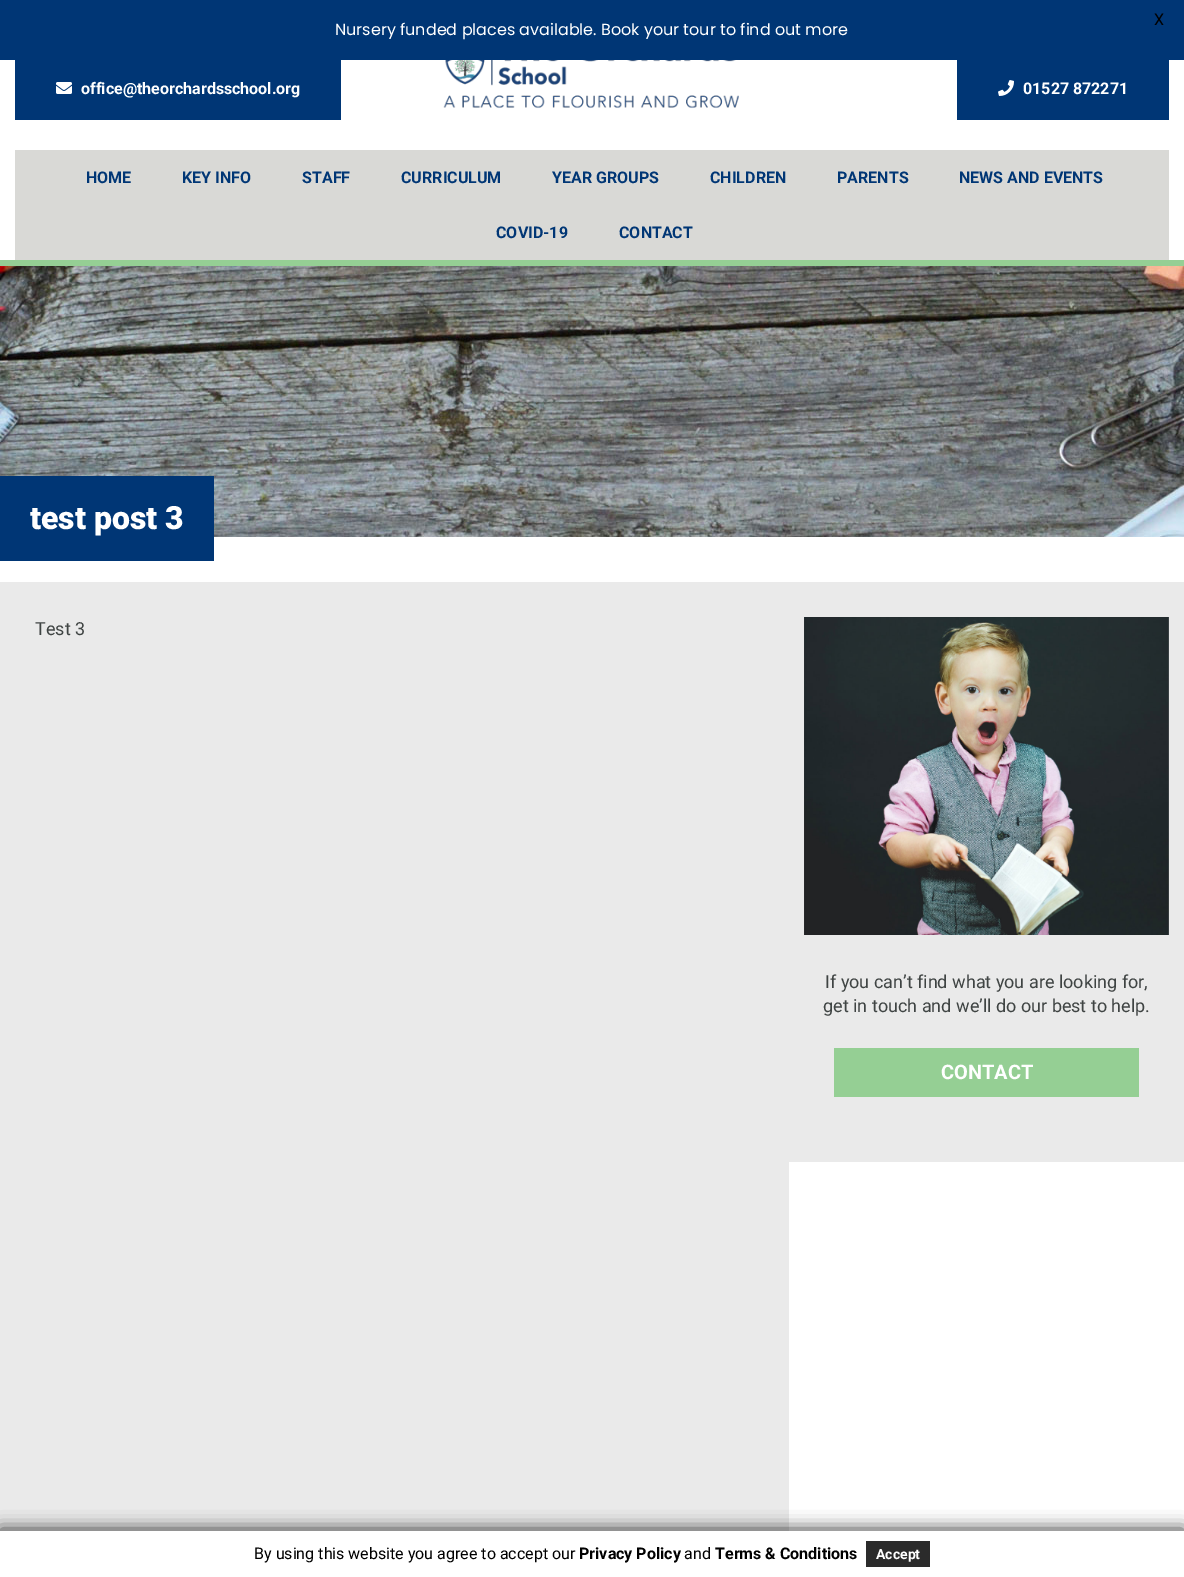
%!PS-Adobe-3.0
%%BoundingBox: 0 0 1184 1577
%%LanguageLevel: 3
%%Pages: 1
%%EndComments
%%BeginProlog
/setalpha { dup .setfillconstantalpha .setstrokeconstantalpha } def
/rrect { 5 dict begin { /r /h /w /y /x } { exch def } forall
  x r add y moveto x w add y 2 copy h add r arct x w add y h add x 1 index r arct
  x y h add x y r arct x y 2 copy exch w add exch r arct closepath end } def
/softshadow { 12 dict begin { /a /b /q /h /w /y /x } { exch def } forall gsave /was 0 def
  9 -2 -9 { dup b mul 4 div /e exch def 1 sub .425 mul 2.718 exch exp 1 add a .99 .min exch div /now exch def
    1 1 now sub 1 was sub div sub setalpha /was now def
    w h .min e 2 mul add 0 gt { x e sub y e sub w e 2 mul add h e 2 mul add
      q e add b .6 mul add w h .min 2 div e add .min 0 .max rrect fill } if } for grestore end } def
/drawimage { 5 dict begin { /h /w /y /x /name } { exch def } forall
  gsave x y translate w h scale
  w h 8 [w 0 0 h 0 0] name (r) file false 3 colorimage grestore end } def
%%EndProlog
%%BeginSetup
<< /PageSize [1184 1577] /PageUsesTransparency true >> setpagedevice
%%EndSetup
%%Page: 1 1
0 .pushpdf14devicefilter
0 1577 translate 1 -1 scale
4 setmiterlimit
1 setgray
0 0 1184 1577 rectfill
0 0.212 0.459 setrgbcolor
0 0 1184 60 rectfill
0.584 0.812 0.58 setrgbcolor
0 260 1184 6 rectfill
0 0.212 0.459 setrgbcolor
15 60 326 60 rectfill
(images/1.raw) 56 82 16 12 drawimage
(images/2.raw) 443 60 296 49 drawimage
957 60 212 60 rectfill
(images/3.raw) 998 80 16 16 drawimage
0.851 0.851 0.839 setrgbcolor
15 150 1154 110 rectfill
(images/4.raw) 0 266 1184 271 drawimage
0 0.212 0.459 setrgbcolor
0 476 214 85 rectfill
0.918 setgray
0 582 789 949 rectfill
789 582 395 580 rectfill
(images/5.raw) 804 617 365 318 drawimage
0.584 0.812 0.58 setrgbcolor
834 1048 305 49 rectfill
0 setgray
0 1529 1184 46 0 8.5 0.75 softshadow
1 setgray
0 1531 1184 46 rectfill
0.169 setgray
866 1541 64 26 rectfill
/Roboto-Regular [16 0 0 -16 0 0] selectfont
0 setgray
1154 25 moveto (X) show
/Poppins-Regular [16 0 0 -16 0 0] selectfont
1 setgray
335 35 moveto (Nursery funded places available. Book your tour to find out more) show
/Roboto-Bold [16 0 0 -16 0 0] selectfont
81 94 moveto (office@theorchardsschool.org) show
1023 94 moveto (01527 872271) show
0 0.212 0.459 setrgbcolor
86 183 moveto (HOME) show
182 183 moveto (KEY INFO) show
302 183 moveto (STAFF) show
401 183 moveto (CURRICULUM) show
552 183 moveto (YEAR GROUPS) show
710 183 moveto (CHILDREN) show
837 183 moveto (PARENTS) show
959 183 moveto (NEWS AND EVENTS) show
496 238 moveto (COVID-19) show
619 238 moveto (CONTACT) show
/Roboto-Black [32 0 0 -32 0 0] selectfont
1 setgray
30 529 moveto (test post 3) show
/Roboto-Regular [18 0 0 -18 0 0] selectfont
0.247 0.267 0.263 setrgbcolor
35 635 moveto (Test 3) show
825 988 moveto (If you can’t find what you are looking for,) show
823 1012 moveto (get in touch and we’ll do our best to help.) show
/Roboto-Bold [20 0 0 -20 0 0] selectfont
1 setgray
941 1079 moveto (CONTACT) show
/Roboto-Regular [16 0 0 -16 0 0] selectfont
0 setgray
254 1559 moveto (By using this website you agree to accept our) show
/Roboto-Bold [16 0 0 -16 0 0] selectfont
579 1559 moveto (Privacy Policy) show
/Roboto-Regular [16 0 0 -16 0 0] selectfont
684 1559 moveto (and) show
/Roboto-Bold [16 0 0 -16 0 0] selectfont
715 1559 moveto (Terms & Conditions) show
/Roboto-Bold [14 0 0 -14 0 0] selectfont
1 setgray
876 1559 moveto (Accept) show
.poppdf14devicefilter showpage
%%EOF
